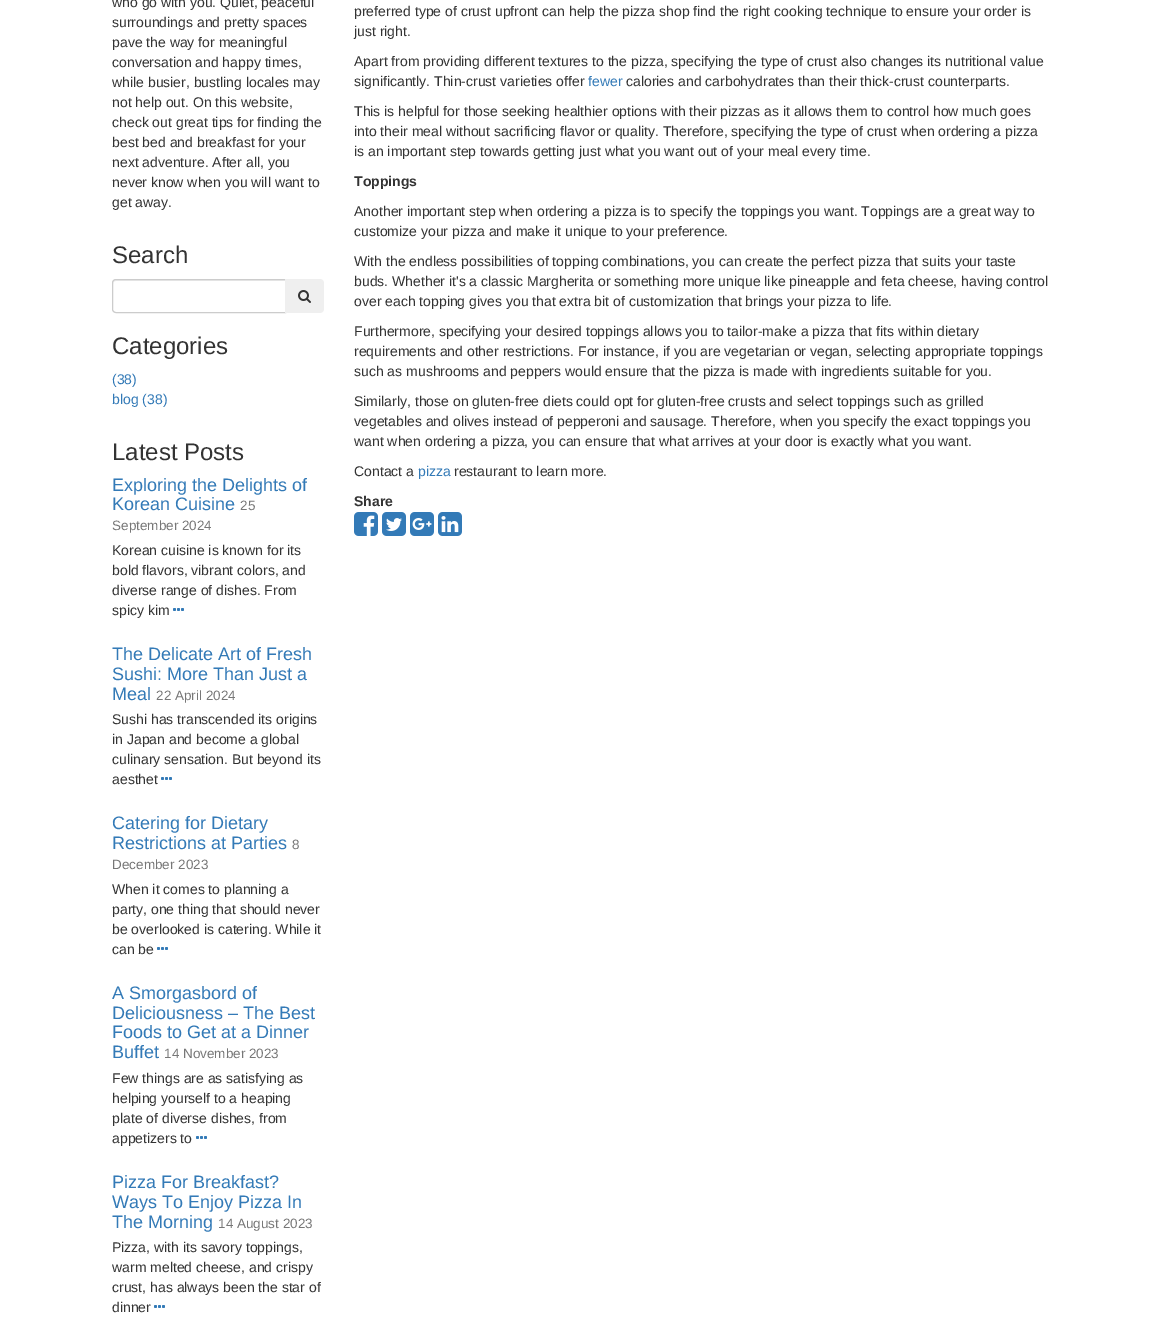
%!PS-Adobe-3.0
%%BoundingBox: 0 0 1163 1334
%%LanguageLevel: 3
%%Pages: 1
%%EndComments
%%BeginProlog
/drawimage { 5 dict begin { /h /w /y /x /name } { exch def } forall
  gsave x y translate w h scale
  w h 8 [w 0 0 h 0 0] name (r) file false 3 colorimage grestore end } def
%%EndProlog
%%BeginSetup
<< /PageSize [1163 1334] >> setpagedevice
%%EndSetup
%%Page: 1 1
0 1334 translate 1 -1 scale
4 setmiterlimit
1 setgray
0 0 1163 1334 rectfill
0.925 setgray
newpath 116 281 moveto 285 281 lineto 285 280 lineto 116 280 lineto 114 280 113 282 113 284 curveto 113 282 114 281 116 281 curveto closepath fill
0.8 setgray
newpath 116 279.5 moveto 285.5 279.5 lineto 285.5 312.5 lineto 116 312.5 lineto 114 312.5 112.5 311 112.5 309 curveto 112.5 283 lineto 112.5 281 114 279.5 116 279.5 curveto closepath stroke
0.937 setgray
newpath 285 279 moveto 320 279 lineto 322 279 324 281 324 283 curveto 324 309 lineto 324 311 322 313 320 313 curveto 285 313 lineto closepath fill
(images/1.raw) 298 290 13 13 drawimage
(images/2.raw) 173 608 11 3 drawimage
(images/2.raw) 161 777 11 3 drawimage
(images/2.raw) 157 947 11 3 drawimage
(images/2.raw) 196 1136 11 3 drawimage
(images/2.raw) 154 1305 11 3 drawimage
(images/3.raw) 354 512 24 24 drawimage
(images/4.raw) 382 512 24 24 drawimage
(images/5.raw) 410 512 24 24 drawimage
(images/6.raw) 438 512 24 24 drawimage
/LiberationSans-Regular [14 0 0 -14 0 0] selectfont
0.2 setgray
112 7 moveto (who go with you. Quiet, peaceful) show
112 27 moveto (surroundings and pretty spaces) show
112 47 moveto (pave the way for meaningful) show
112 67 moveto (conversation and happy times,) show
112 87 moveto (while busier, bustling locales may) show
112 107 moveto (not help out. On this website,) show
112 127 moveto (check out great tips for finding the) show
112 147 moveto (best bed and breakfast for your) show
112 167 moveto (next adventure. After all, you) show
112 187 moveto (never know when you will want to) show
112 207 moveto (get away.) show
/LiberationSans-Regular [24 0 0 -24 0 0] selectfont
112 263 moveto (Search) show
112 354 moveto (Categories) show
/LiberationSans-Regular [14 0 0 -14 0 0] selectfont
0.2 0.478 0.718 setrgbcolor
112 384 moveto (\(38\)) show
112 404 moveto (blog \(38\)) show
/LiberationSans-Regular [24 0 0 -24 0 0] selectfont
0.2 setgray
112 460 moveto (Latest Posts) show
/LiberationSans-Regular [18 0 0 -18 0 0] selectfont
0.2 0.478 0.718 setrgbcolor
112 491 moveto (Exploring the Delights of) show
112 510 moveto (Korean Cuisine) show
/LiberationSans-Regular [13.5 0 0 -13.5 0 0] selectfont
0.467 setgray
240 510 moveto (25) show
112 530 moveto (September 2024) show
/LiberationSans-Regular [14 0 0 -14 0 0] selectfont
0.2 setgray
112 555 moveto (Korean cuisine is known for its) show
112 575 moveto (bold flavors, vibrant colors, and) show
112 595 moveto (diverse range of dishes. From) show
112 615 moveto (spicy kim) show
/LiberationSans-Regular [18 0 0 -18 0 0] selectfont
0.2 0.478 0.718 setrgbcolor
112 660 moveto (The Delicate Art of Fresh) show
112 680 moveto (Sushi: More Than Just a) show
112 700 moveto (Meal) show
/LiberationSans-Regular [13.5 0 0 -13.5 0 0] selectfont
0.467 setgray
156 700 moveto (22 April 2024) show
/LiberationSans-Regular [14 0 0 -14 0 0] selectfont
0.2 setgray
112 724 moveto (Sushi has transcended its origins) show
112 744 moveto (in Japan and become a global) show
112 764 moveto (culinary sensation. But beyond its) show
112 784 moveto (aesthet) show
/LiberationSans-Regular [18 0 0 -18 0 0] selectfont
0.2 0.478 0.718 setrgbcolor
112 829 moveto (Catering for Dietary) show
112 849 moveto (Restrictions at Parties) show
/LiberationSans-Regular [13.5 0 0 -13.5 0 0] selectfont
0.467 setgray
292 849 moveto (8) show
112 869 moveto (December 2023) show
/LiberationSans-Regular [14 0 0 -14 0 0] selectfont
0.2 setgray
112 894 moveto (When it comes to planning a) show
112 914 moveto (party, one thing that should never) show
112 934 moveto (be overlooked is catering. While it) show
112 954 moveto (can be) show
/LiberationSans-Regular [18 0 0 -18 0 0] selectfont
0.2 0.478 0.718 setrgbcolor
112 999 moveto (A Smorgasbord of) show
112 1019 moveto (Deliciousness – The Best) show
112 1038 moveto (Foods to Get at a Dinner) show
112 1058 moveto (Buffet) show
/LiberationSans-Regular [13.5 0 0 -13.5 0 0] selectfont
0.467 setgray
164 1058 moveto (14 November 2023) show
/LiberationSans-Regular [14 0 0 -14 0 0] selectfont
0.2 setgray
112 1083 moveto (Few things are as satisfying as) show
112 1103 moveto (helping yourself to a heaping) show
112 1123 moveto (plate of diverse dishes, from) show
112 1143 moveto (appetizers to) show
/LiberationSans-Regular [18 0 0 -18 0 0] selectfont
0.2 0.478 0.718 setrgbcolor
112 1188 moveto (Pizza For Breakfast?) show
112 1208 moveto (Ways To Enjoy Pizza In) show
112 1228 moveto (The Morning) show
/LiberationSans-Regular [13.5 0 0 -13.5 0 0] selectfont
0.467 setgray
218 1228 moveto (14 August 2023) show
/LiberationSans-Regular [14 0 0 -14 0 0] selectfont
0.2 setgray
112 1252 moveto (Pizza, with its savory toppings,) show
112 1272 moveto (warm melted cheese, and crispy) show
112 1292 moveto (crust, has always been the star of) show
112 1312 moveto (dinner) show
354 16 moveto (preferred type of crust upfront can help the pizza shop find the right cooking technique to ensure your order is) show
354 36 moveto (just right.) show
354 66 moveto (Apart from providing different textures to the pizza, specifying the type of crust also changes its nutritional value) show
354 86 moveto (significantly. Thin-crust varieties offer) show
0.2 0.478 0.718 setrgbcolor
588 86 moveto (fewer) show
0.2 setgray
626 86 moveto (calories and carbohydrates than their thick-crust counterparts.) show
354 116 moveto (This is helpful for those seeking healthier options with their pizzas as it allows them to control how much goes) show
354 136 moveto (into their meal without sacrificing flavor or quality. Therefore, specifying the type of crust when ordering a pizza) show
354 156 moveto (is an important step towards getting just what you want out of your meal every time.) show
/LiberationSans-Bold [14 0 0 -14 0 0] selectfont
354 186 moveto (Toppings) show
/LiberationSans-Regular [14 0 0 -14 0 0] selectfont
354 216 moveto (Another important step when ordering a pizza is to specify the toppings you want. Toppings are a great way to) show
354 236 moveto (customize your pizza and make it unique to your preference.) show
354 266 moveto (With the endless possibilities of topping combinations, you can create the perfect pizza that suits your taste) show
354 286 moveto (buds. Whether it's a classic Margherita or something more unique like pineapple and feta cheese, having control) show
354 306 moveto (over each topping gives you that extra bit of customization that brings your pizza to life.) show
354 336 moveto (Furthermore, specifying your desired toppings allows you to tailor-make a pizza that fits within dietary) show
354 356 moveto (requirements and other restrictions. For instance, if you are vegetarian or vegan, selecting appropriate toppings) show
354 376 moveto (such as mushrooms and peppers would ensure that the pizza is made with ingredients suitable for you.) show
354 406 moveto (Similarly, those on gluten-free diets could opt for gluten-free crusts and select toppings such as grilled) show
354 426 moveto (vegetables and olives instead of pepperoni and sausage. Therefore, when you specify the exact toppings you) show
354 446 moveto (want when ordering a pizza, you can ensure that what arrives at your door is exactly what you want.) show
354 476 moveto (Contact a) show
0.2 0.478 0.718 setrgbcolor
418 476 moveto (pizza) show
0.2 setgray
454 476 moveto (restaurant to learn more.) show
/LiberationSans-Bold [14 0 0 -14 0 0] selectfont
354 506 moveto (Share) show
showpage
%%EOF
